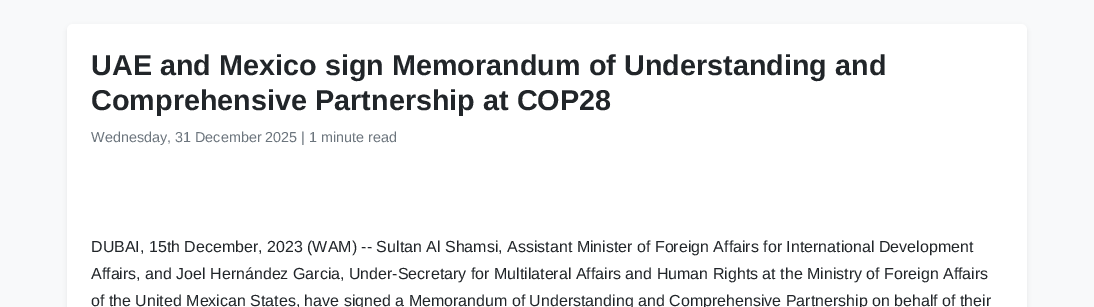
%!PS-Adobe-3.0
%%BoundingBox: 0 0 1094 307
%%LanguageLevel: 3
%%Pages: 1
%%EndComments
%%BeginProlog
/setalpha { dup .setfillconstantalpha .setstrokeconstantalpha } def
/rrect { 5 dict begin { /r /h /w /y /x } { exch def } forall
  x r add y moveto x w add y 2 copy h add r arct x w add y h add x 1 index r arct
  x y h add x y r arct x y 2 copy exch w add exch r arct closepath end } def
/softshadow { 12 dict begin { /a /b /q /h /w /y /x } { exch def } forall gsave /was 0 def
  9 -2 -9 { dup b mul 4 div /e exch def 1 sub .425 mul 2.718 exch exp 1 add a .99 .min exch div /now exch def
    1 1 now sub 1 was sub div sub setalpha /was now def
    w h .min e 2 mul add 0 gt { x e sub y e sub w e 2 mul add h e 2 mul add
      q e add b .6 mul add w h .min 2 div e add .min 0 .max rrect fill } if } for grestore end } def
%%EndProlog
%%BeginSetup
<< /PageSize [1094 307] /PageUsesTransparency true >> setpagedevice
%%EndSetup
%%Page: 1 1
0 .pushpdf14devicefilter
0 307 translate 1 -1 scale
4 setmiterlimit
0.973 0.976 0.98 setrgbcolor
0 0 1094 307 rectfill
0 setgray
67 26 960 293 6 2 0.07 softshadow
1 setgray
67 24 960 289 6 rrect fill
/LiberationSans-Bold [28.8 0 0 -28.8 0 0] selectfont
0.129 0.145 0.161 setrgbcolor
91 75 moveto (UAE and Mexico sign Memorandum of Understanding and) show
91 110 moveto (Comprehensive Partnership at COP28) show
/LiberationSans-Regular [14.4 0 0 -14.4 0 0] selectfont
0.424 0.459 0.49 setrgbcolor
91 142 moveto (Wednesday, 31 December 2025 | 1 minute read) show
/LiberationSans-Regular [16 0 0 -16 0 0] selectfont
0.129 0.145 0.161 setrgbcolor
91 252 moveto (DUBAI, 15th December, 2023 \(WAM\) -- Sultan Al Shamsi, Assistant Minister of Foreign Affairs for International Development) show
91 279 moveto (Affairs, and Joel Hernández Garcia, Under-Secretary for Multilateral Affairs and Human Rights at the Ministry of Foreign Affairs) show
91 306 moveto (of the United Mexican States, have signed a Memorandum of Understanding and Comprehensive Partnership on behalf of their) show
.poppdf14devicefilter showpage
%%EOF
